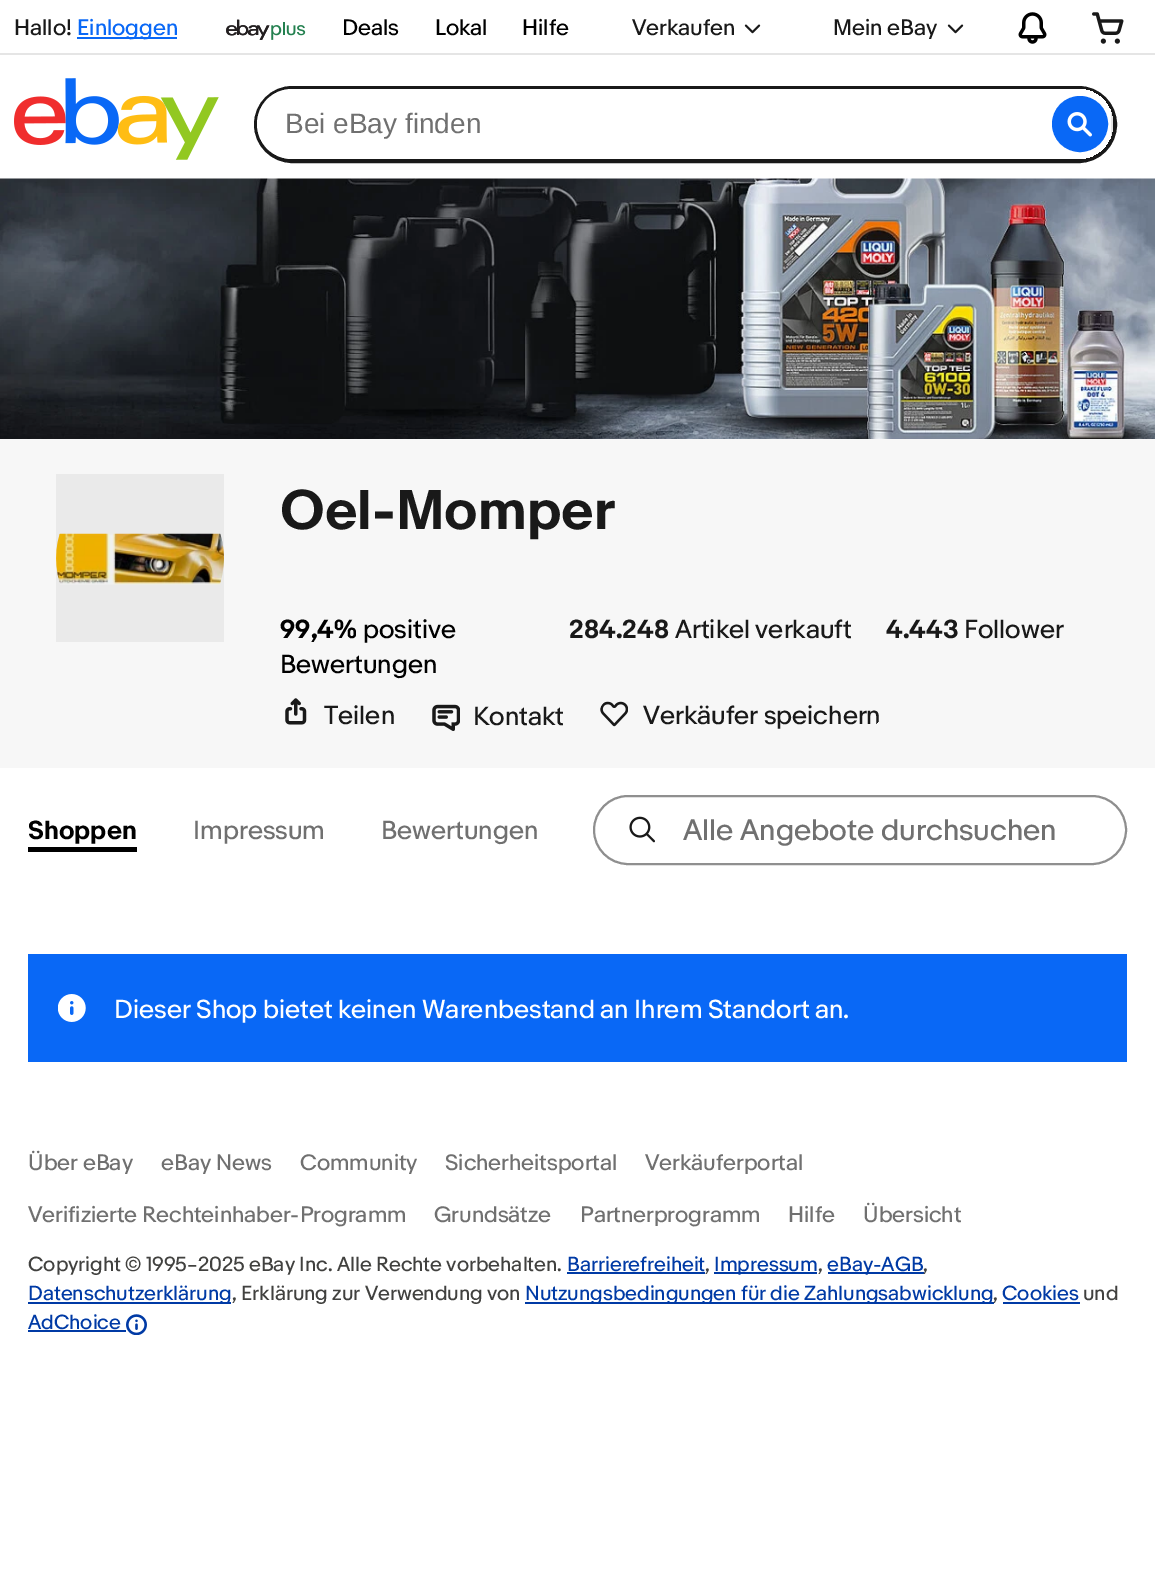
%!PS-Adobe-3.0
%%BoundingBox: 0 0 1155 1585
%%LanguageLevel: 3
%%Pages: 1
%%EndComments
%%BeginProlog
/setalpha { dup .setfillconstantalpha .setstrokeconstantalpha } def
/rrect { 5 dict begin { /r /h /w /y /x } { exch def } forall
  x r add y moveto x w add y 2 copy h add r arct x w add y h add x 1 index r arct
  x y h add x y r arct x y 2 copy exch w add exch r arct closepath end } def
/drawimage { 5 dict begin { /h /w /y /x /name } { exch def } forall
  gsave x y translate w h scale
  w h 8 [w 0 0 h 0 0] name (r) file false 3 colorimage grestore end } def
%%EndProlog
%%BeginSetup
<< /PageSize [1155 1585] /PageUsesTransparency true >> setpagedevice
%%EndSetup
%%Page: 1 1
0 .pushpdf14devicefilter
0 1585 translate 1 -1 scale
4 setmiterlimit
1 setgray
0 0 1155 1585 rectfill
0.035 0.408 0.965 setrgbcolor
77 37 100 2 rectfill
(images/1.raw) 226 19 80 21 drawimage
(images/2.raw) 744 24 17 10 drawimage
(images/2.raw) 947 24 17 10 drawimage
(images/3.raw) 1018 12 29 32 drawimage
(images/4.raw) 1092 12 32 32 drawimage
(images/5.raw) 14 78 205 82 drawimage
0.098 setgray
4 setlinewidth
256 88 859 73 36.5 rrect stroke
gsave
257 89 856 70 35 rrect clip newpath
0.898 setgray
1111 112 2 24 rectfill
1 setgray
newpath 292 89 moveto 1111 89 lineto 1111 159 lineto 292 159 lineto 272.5 159 257 143.5 257 124 curveto 257 104.5 272.5 89 292 89 curveto closepath fill
grestore
0.035 0.408 0.965 setrgbcolor
newpath 1080 124 27 0 360 arc closepath gsave fill grestore
2 setlinewidth
stroke
(images/6.raw) 1067 112 25 25 drawimage
0.898 setgray
0 53 1155 2 rectfill
(images/7.raw) 0 178 1155 261 drawimage
0.969 setgray
0 439 1155 329 rectfill
(images/8.raw) 56 533 168 52 drawimage
0.05 setalpha
0 setgray
56 474 168 168 rectfill
1 setalpha
(images/9.raw) 285 698 22 27 drawimage
(images/10.raw) 432 704 28 27 drawimage
(images/11.raw) 600 701 28 26 drawimage
28 847 109 5 rectfill
0.561 setgray
594 796 532 68 34 rrect stroke
(images/12.raw) 629 816 26 27 drawimage
0.035 0.408 0.965 setrgbcolor
28 954 1099 108 rectfill
(images/13.raw) 58 994 28 28 drawimage
0 0.227 0.647 setrgbcolor
567 1272 138 2 rectfill
714 1272 103 2 rectfill
828 1272 96 2 rectfill
28 1302 203 2 rectfill
525 1302 469 2 rectfill
1003 1302 77 2 rectfill
28 1330 98 2 rectfill
(images/14.raw) 126 1314 21 21 drawimage
/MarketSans-Regular [21 0 0 -21 0 0] selectfont
0.098 setgray
14 35 moveto (Hallo!) show
0.035 0.408 0.965 setrgbcolor
77 35 moveto (Einloggen) show
0 setgray
342 35 moveto (Deals) show
435 35 moveto (Lokal) show
522 35 moveto (Hilfe) show
0.098 setgray
632 35 moveto (Verkaufen) show
833 35 moveto (Mein eBay) show
/LiberationSans-Regular [28 0 0 -28 0 0] selectfont
0.439 setgray
285 133 moveto (Bei eBay finden) show
/MarketSans-Bold [52.5 0 0 -52.5 0 0] selectfont
0.098 setgray
280 529 moveto (Oel-Momper) show
/MarketSans-Bold [24.5 0 0 -24.5 0 0] selectfont
0 setgray
280 638 moveto (99,4%) show
/MarketSans-Regular [24.5 0 0 -24.5 0 0] selectfont
363 638 moveto (positive) show
280 673 moveto (Bewertungen) show
/MarketSans-Bold [24.5 0 0 -24.5 0 0] selectfont
0.098 setgray
569 638 moveto (284.248) show
/MarketSans-Regular [24.5 0 0 -24.5 0 0] selectfont
675 638 moveto (Artikel verkauft) show
/MarketSans-Bold [24.5 0 0 -24.5 0 0] selectfont
886 638 moveto (4.443) show
/MarketSans-Regular [24.5 0 0 -24.5 0 0] selectfont
964 638 moveto (Follower) show
324 724 moveto (Teilen) show
473 725 moveto (Kontakt) show
gsave
599 698 281 32 16 rrect clip newpath
643 724 moveto (Verkäufer speichern) show
grestore
/MarketSans-Bold [24.5 0 0 -24.5 0 0] selectfont
0 setgray
28 839 moveto (Shoppen) show
/MarketSans-Regular [24.5 0 0 -24.5 0 0] selectfont
0.439 setgray
193 839 moveto (Impressum) show
381 839 moveto (Bewertungen) show
/MarketSans-Regular [28 0 0 -28 0 0] selectfont
683 840 moveto (Alle Angebote durchsuchen) show
/MarketSans-Regular [24.5 0 0 -24.5 0 0] selectfont
1 setgray
114 1018 moveto (Dieser Shop bietet keinen Warenbestand an Ihrem Standort an.) show
/MarketSans-Regular [21 0 0 -21 0 0] selectfont
0.439 setgray
28 1170 moveto (Über eBay) show
161 1170 moveto (eBay News) show
300 1170 moveto (Community) show
445 1170 moveto (Sicherheitsportal) show
645 1170 moveto (Verkäuferportal) show
28 1222 moveto (Verifizierte Rechteinhaber-Programm) show
434 1222 moveto (Grundsätze) show
580 1222 moveto (Partnerprogramm) show
788 1222 moveto (Hilfe) show
863 1222 moveto (Übersicht) show
/MarketSans-Regular [19.25 0 0 -19.25 0 0] selectfont
0.255 0.255 0.247 setrgbcolor
28 1271 moveto (Copyright © 1995–2025 eBay Inc. Alle Rechte vorbehalten.) show
0 0.227 0.647 setrgbcolor
567 1271 moveto (Barrierefreiheit) show
0.255 0.255 0.247 setrgbcolor
705 1271 moveto (,) show
0 0.227 0.647 setrgbcolor
714 1271 moveto (Impressum) show
0.255 0.255 0.247 setrgbcolor
818 1271 moveto (,) show
0 0.227 0.647 setrgbcolor
827 1271 moveto (eBay-AGB) show
0.255 0.255 0.247 setrgbcolor
923 1271 moveto (,) show
0 0.227 0.647 setrgbcolor
28 1300 moveto (Datenschutzerklärung) show
0.255 0.255 0.247 setrgbcolor
232 1300 moveto (, Erklärung zur Verwendung von) show
0 0.227 0.647 setrgbcolor
525 1300 moveto (Nutzungsbedingungen für die Zahlungsabwicklung) show
0.255 0.255 0.247 setrgbcolor
993 1300 moveto (,) show
0 0.227 0.647 setrgbcolor
1002 1300 moveto (Cookies) show
0.255 0.255 0.247 setrgbcolor
1083 1300 moveto (und) show
0 0.227 0.647 setrgbcolor
28 1329 moveto (AdChoice) show
.poppdf14devicefilter showpage
%%EOF
